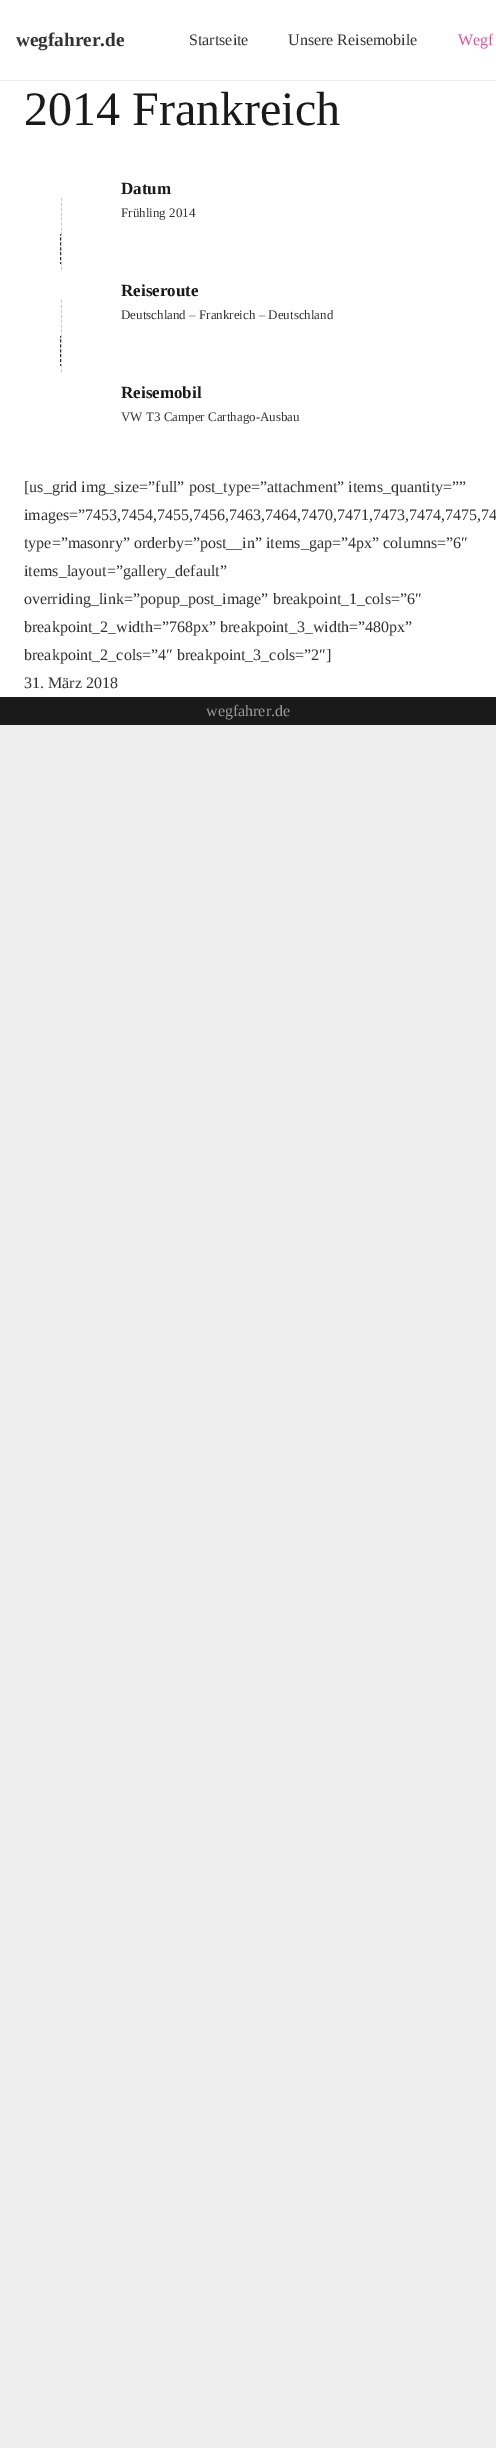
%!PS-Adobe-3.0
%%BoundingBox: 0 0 496 2448
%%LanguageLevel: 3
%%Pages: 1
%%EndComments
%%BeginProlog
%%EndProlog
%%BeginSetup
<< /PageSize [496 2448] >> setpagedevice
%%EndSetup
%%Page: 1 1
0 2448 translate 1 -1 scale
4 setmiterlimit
0.933 setgray
0 0 496 2448 rectfill
1 setgray
0 0 496 697 rectfill
0.922 setgray
0 80 496 1 rectfill
0.2 setgray
[3 1.93] 0 setdash
newpath 60.5 198 moveto 60.5 270 lineto stroke
1 setgray
60 198 1 36 rectfill
0.2 setgray
newpath 60.5 300 moveto 60.5 372 lineto stroke
1 setgray
60 264 1 72 rectfill
60 366 1 6 rectfill
0.102 setgray
0 697 496 28 rectfill
/LiberationSerif-Bold [19.25 0 0 -19.25 0 0] selectfont
0.2 setgray
16 46 moveto (wegfahrer.de) show
/LiberationSerif-Regular [16 0 0 -16 0 0] selectfont
189 45 moveto (Startseite) show
288 45 moveto (Unsere Reisemobile) show
0.914 0.314 0.584 setrgbcolor
458 45 moveto (Wegf) show
/LiberationSerif-Regular [48 0 0 -48 0 0] selectfont
0.102 setgray
24 125 moveto (2014 Frankreich) show
/LiberationSerif-Bold [17 0 0 -17 0 0] selectfont
121 194 moveto (Datum) show
/LiberationSerif-Regular [13 0 0 -13 0 0] selectfont
0.2 setgray
121 217 moveto (Frühling 2014) show
/LiberationSerif-Bold [17 0 0 -17 0 0] selectfont
0.102 setgray
121 296 moveto (Reiseroute) show
/LiberationSerif-Regular [13 0 0 -13 0 0] selectfont
0.2 setgray
121 319 moveto (Deutschland – Frankreich – Deutschland) show
/LiberationSerif-Bold [17 0 0 -17 0 0] selectfont
0.102 setgray
121 398 moveto (Reisemobil) show
/LiberationSerif-Regular [13 0 0 -13 0 0] selectfont
0.2 setgray
121 421 moveto (VW T3 Camper Carthago-Ausbau) show
/LiberationSerif-Regular [16 0 0 -16 0 0] selectfont
24 492 moveto ([us_grid img_size=”full” post_type=”attachment” items_quantity=””) show
24 520 moveto (images=”7453,7454,7455,7456,7463,7464,7470,7471,7473,7474,7475,74) show
24 548 moveto (type=”masonry” orderby=”post__in” items_gap=”4px” columns=”6″) show
24 576 moveto (items_layout=”gallery_default”) show
24 604 moveto (overriding_link=”popup_post_image” breakpoint_1_cols=”6″) show
24 632 moveto (breakpoint_2_width=”768px” breakpoint_3_width=”480px”) show
24 660 moveto (breakpoint_2_cols=”4″ breakpoint_3_cols=”2″]) show
24 688 moveto (31. März 2018) show
0.6 setgray
206 716 moveto (wegfahrer.de) show
showpage
%%EOF
